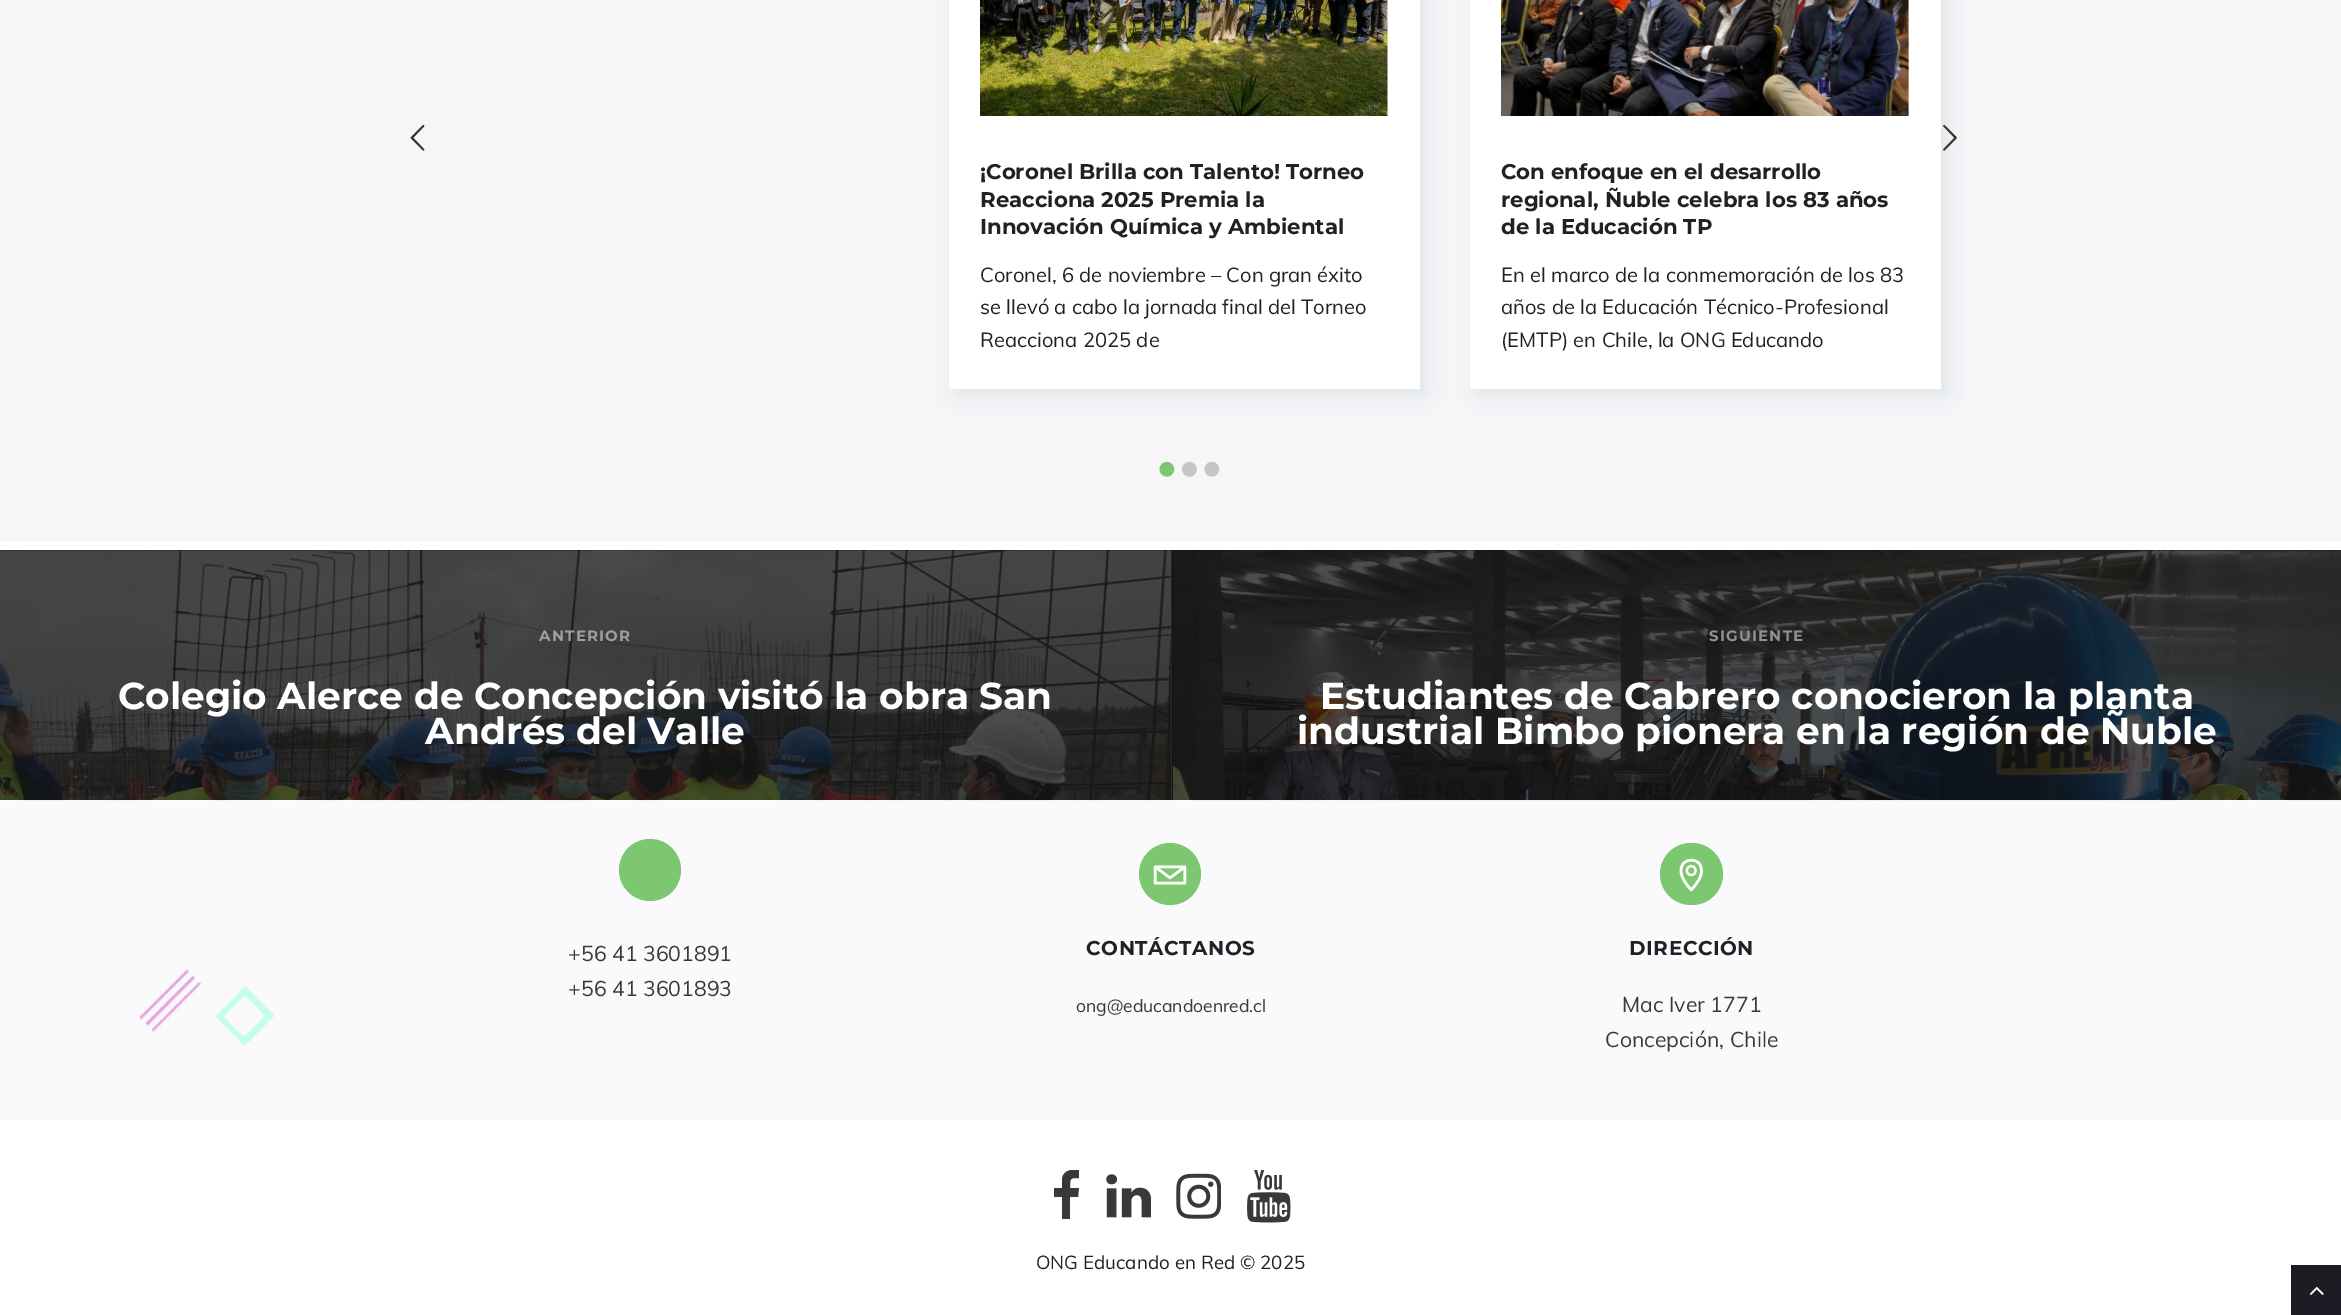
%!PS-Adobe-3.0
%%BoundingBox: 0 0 2341 1315
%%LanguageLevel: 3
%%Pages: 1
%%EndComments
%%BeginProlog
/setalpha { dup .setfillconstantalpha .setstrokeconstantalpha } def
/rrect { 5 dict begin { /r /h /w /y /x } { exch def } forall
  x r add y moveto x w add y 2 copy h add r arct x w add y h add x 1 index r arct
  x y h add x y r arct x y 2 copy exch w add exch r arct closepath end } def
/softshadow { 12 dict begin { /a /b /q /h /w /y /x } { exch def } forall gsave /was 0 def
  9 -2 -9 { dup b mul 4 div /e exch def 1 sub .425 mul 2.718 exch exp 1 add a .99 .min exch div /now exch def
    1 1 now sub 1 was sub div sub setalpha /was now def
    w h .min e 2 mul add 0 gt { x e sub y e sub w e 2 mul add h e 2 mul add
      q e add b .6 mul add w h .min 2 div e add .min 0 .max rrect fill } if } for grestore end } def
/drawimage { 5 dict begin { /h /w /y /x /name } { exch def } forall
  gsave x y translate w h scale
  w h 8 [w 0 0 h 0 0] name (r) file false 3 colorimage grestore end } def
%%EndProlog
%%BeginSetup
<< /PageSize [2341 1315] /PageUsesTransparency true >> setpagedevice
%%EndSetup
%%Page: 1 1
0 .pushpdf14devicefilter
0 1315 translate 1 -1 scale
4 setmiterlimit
1 setgray
0 0 2341 1315 rectfill
0.965 0.965 0.976 setrgbcolor
0 0 2341 541 rectfill
(images/1.raw) 410 124 15 27 drawimage
gsave
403 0 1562 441 rectclip
0.878 0.898 0.906 setrgbcolor
1476 -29 472 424 0 9.5 1 softshadow
grestore
(images/2.raw) 1943 124 14 27 drawimage
0.878 0.898 0.906 setrgbcolor
955 -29 471 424 0 9.5 1 softshadow
1 setgray
949 0 471 389 rectfill
(images/3.raw) 980 0 408 116 drawimage
1470 0 471 389 rectfill
(images/4.raw) 1501 0 408 116 drawimage
(images/5.raw) 1159 461 16 16 drawimage
(images/6.raw) 1182 461 15 16 drawimage
(images/7.raw) 1204 461 16 16 drawimage
0.063 setgray
0 550 1171 250 rectfill
(images/8.raw) 0 550 1171 251 drawimage
1172 550 1169 250 rectfill
0.157 setgray
1171 550 1 250 rectfill
(images/9.raw) 1172 550 1169 251 drawimage
(images/10.raw) 0 801 2341 319 drawimage
0.49 0.78 0.443 setrgbcolor
newpath 650 870 31 0 360 arc closepath fill
newpath 1170 874 31 0 360 arc closepath fill
(images/11.raw) 1153 865 34 20 drawimage
1660 843 63 62 31 rrect fill
(images/12.raw) 1679 858 24 34 drawimage
gsave
1051 1170 30 53 rectclip
0.224 0.224 0.227 setrgbcolor
newpath 1079 1170 moveto 1079 1178 lineto 1070 1178 1070 1178 1070 1188 curveto 1079 1188 lineto 1078 1197 lineto 1070 1197 lineto 1070 1219 lineto 1062 1219 lineto 1062 1197 lineto 1054 1197 lineto 1054 1188 lineto 1062 1188 lineto 1062 1179 lineto 1063 1170 1072 1169 1079 1170 curveto closepath fill
grestore
(images/13.raw) 1106 1174 45 44 drawimage
(images/14.raw) 1176 1173 45 46 drawimage
(images/15.raw) 1247 1170 44 53 drawimage
0.122 0.106 0.145 setrgbcolor
2291 1265 50 50 rectfill
(images/16.raw) 2309 1286 15 9 drawimage
/Montserrat-Bold [21.25 0 0 -21.25 0 0] selectfont
0.133 0.125 0.145 setrgbcolor
980 179 moveto (¡Coronel Brilla con Talento! Torneo) show
980 207 moveto (Reacciona 2025 Premia la) show
980 234 moveto (Innovación Química y Ambiental) show
/Muli-Regular [20.2 0 0 -20.2 0 0] selectfont
980 282 moveto (Coronel, 6 de noviembre – Con gran éxito) show
980 314 moveto (se llevó a cabo la jornada final del Torneo) show
980 347 moveto (Reacciona 2025 de) show
/Montserrat-Bold [21.25 0 0 -21.25 0 0] selectfont
1501 179 moveto (Con enfoque en el desarrollo) show
1501 207 moveto (regional, Ñuble celebra los 83 años) show
1501 234 moveto (de la Educación TP) show
/Muli-Regular [20.2 0 0 -20.2 0 0] selectfont
1501 282 moveto (En el marco de la conmemoración de los 83) show
1501 314 moveto (años de la Educación Técnico-Profesional) show
1501 347 moveto (\(EMTP\) en Chile, la ONG Educando) show
/Montserrat-Bold [15 0 0 -15 0 0] selectfont
0.62 0.624 0.624 setrgbcolor
539 641 moveto 1.25 0 (ANTERIOR) ashow
/Montserrat-Bold [37.5 0 0 -37.5 0 0] selectfont
1 setgray
118 709 moveto (Colegio Alerce de Concepción visitó la obra San) show
425 744 moveto (Andrés del Valle) show
/Montserrat-Bold [15 0 0 -15 0 0] selectfont
0.576 0.573 0.573 setrgbcolor
1709 641 moveto 1.25 0 (SIGUIENTE) ashow
/Montserrat-Bold [37.5 0 0 -37.5 0 0] selectfont
1 setgray
1320 709 moveto (Estudiantes de Cabrero conocieron la planta) show
1297 744 moveto (industrial Bimbo pionera en la región de Ñuble) show
/Muli-Regular [21.25 0 0 -21.25 0 0] selectfont
0.224 0.224 0.227 setrgbcolor
568 961 moveto (+56 41 3601891) show
568 996 moveto (+56 41 3601893) show
/Montserrat-Bold [20 0 0 -20 0 0] selectfont
0.133 0.125 0.145 setrgbcolor
1086 955 moveto 0.6 0 (CONTÁCTANOS) ashow
/Muli-Regular [17.5 0 0 -17.5 0 0] selectfont
0.224 0.224 0.227 setrgbcolor
1076 1012 moveto (ong@educandoenred.cl) show
/Montserrat-Bold [20 0 0 -20 0 0] selectfont
0.133 0.125 0.145 setrgbcolor
1629 955 moveto 0.6 0 (DIRECCIÓN) ashow
/Muli-Regular [21.25 0 0 -21.25 0 0] selectfont
0.224 0.224 0.227 setrgbcolor
1622 1012 moveto (Mac Iver 1771) show
1605 1047 moveto (Concepción, Chile) show
/Muli-Regular [18.75 0 0 -18.75 0 0] selectfont
0.133 0.125 0.145 setrgbcolor
1036 1269 moveto (ONG Educando en Red © 2025) show
.poppdf14devicefilter showpage
%%EOF
